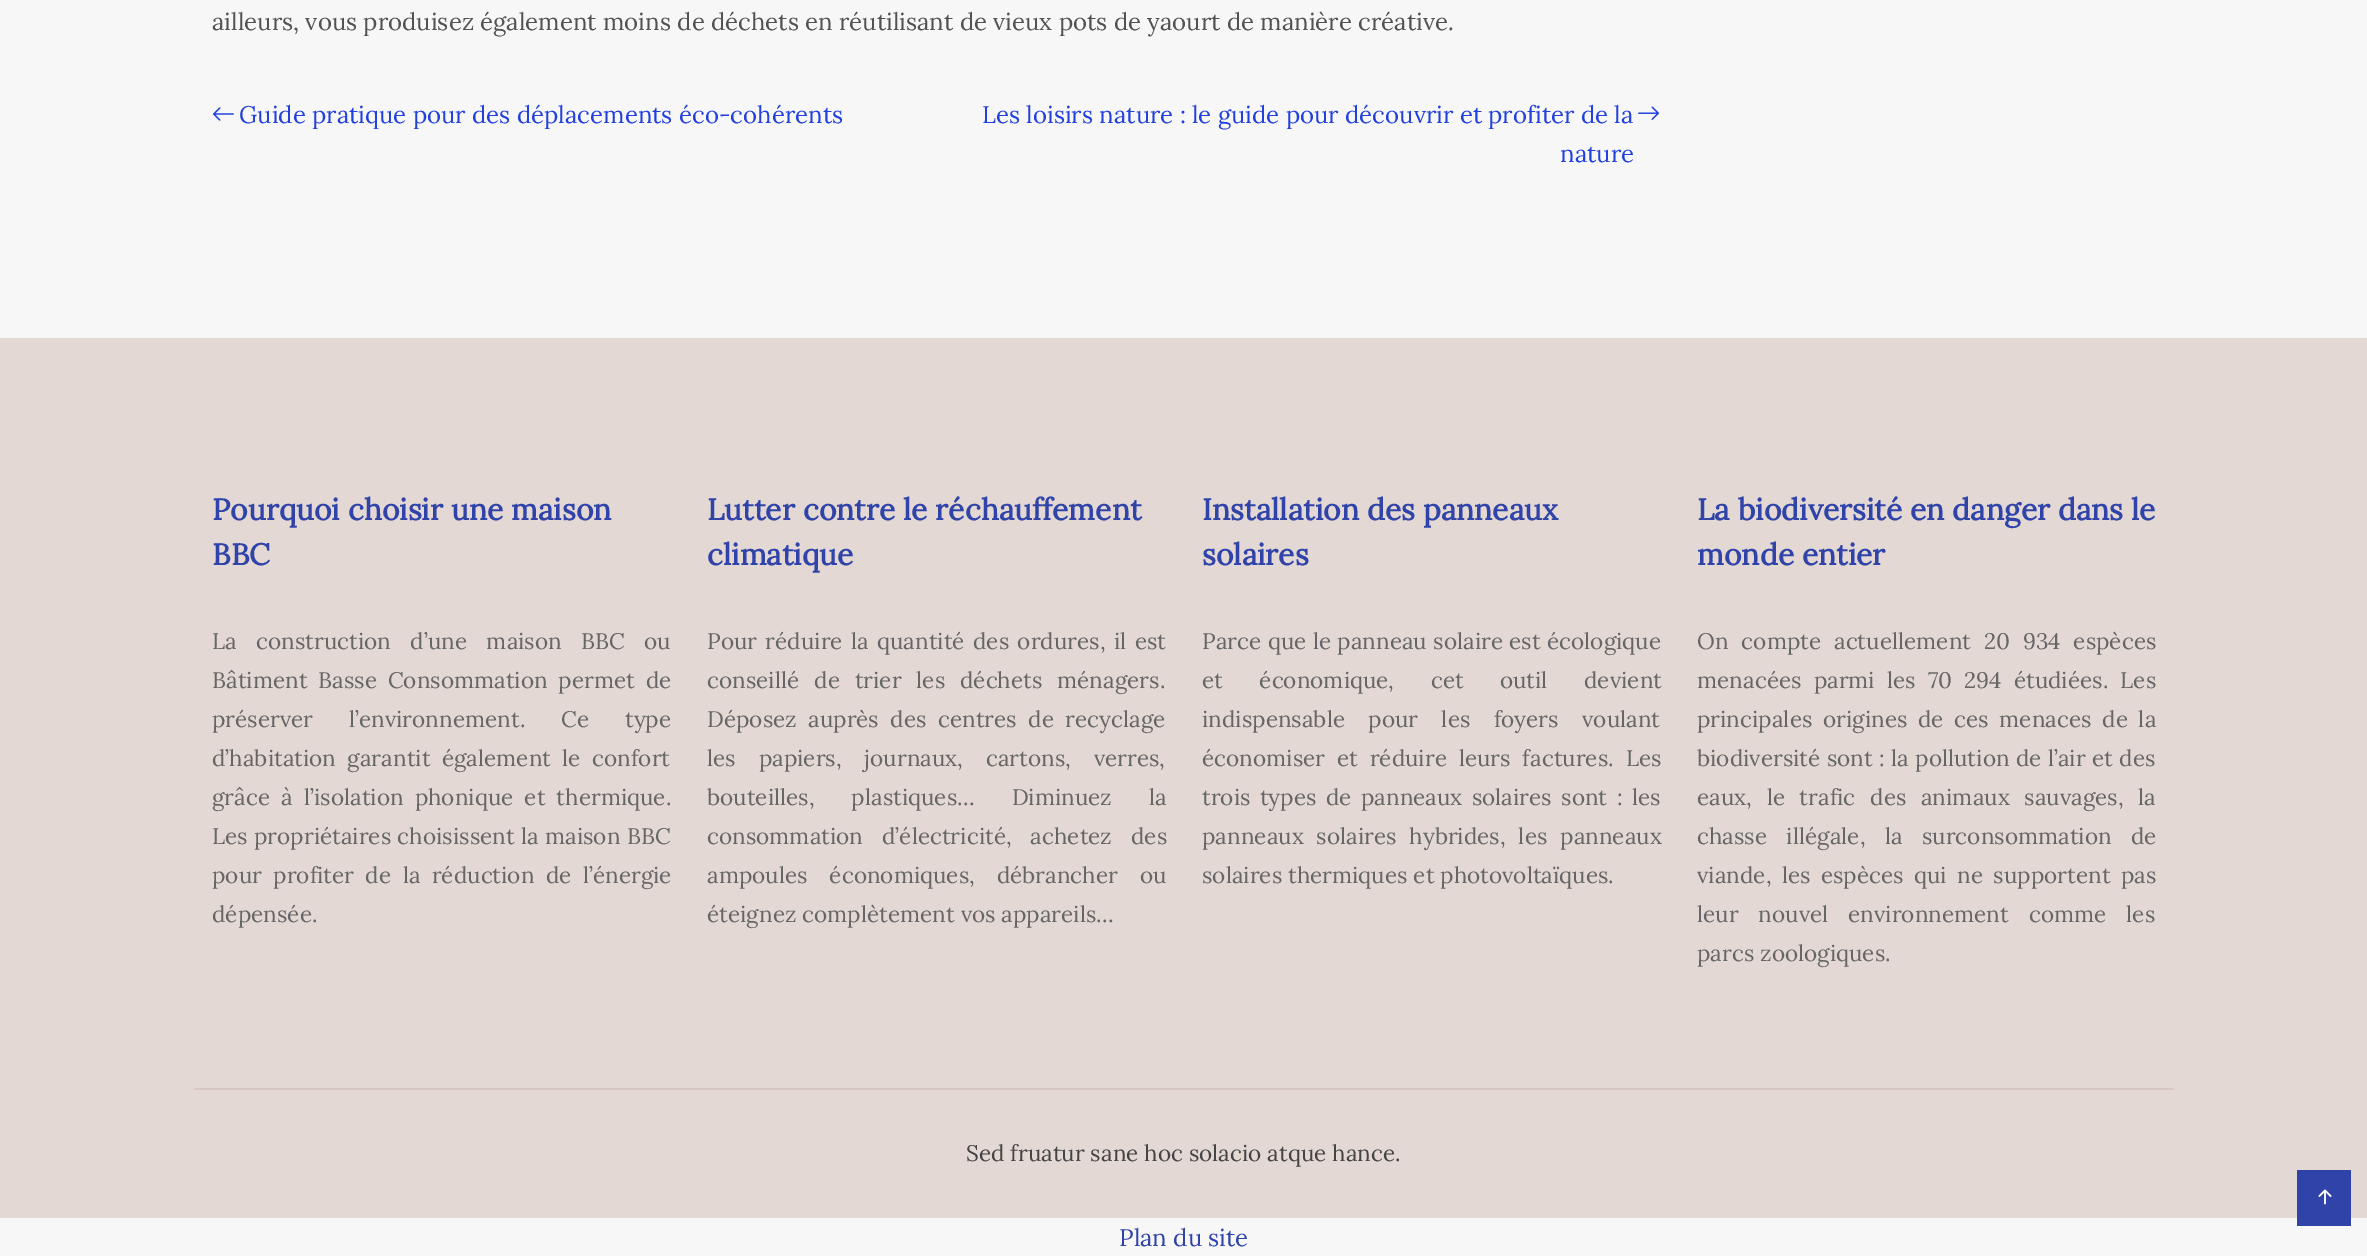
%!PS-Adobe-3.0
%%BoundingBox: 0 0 2367 1256
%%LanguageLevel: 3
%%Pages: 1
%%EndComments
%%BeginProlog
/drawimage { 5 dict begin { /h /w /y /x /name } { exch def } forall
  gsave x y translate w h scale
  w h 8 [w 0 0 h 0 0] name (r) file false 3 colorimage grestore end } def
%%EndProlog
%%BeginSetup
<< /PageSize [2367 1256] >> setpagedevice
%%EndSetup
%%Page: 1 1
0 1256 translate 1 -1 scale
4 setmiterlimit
0.969 setgray
0 0 2367 1256 rectfill
(images/1.raw) 213 107 21 14 drawimage
(images/2.raw) 1638 106 21 14 drawimage
0.89 0.847 0.831 setrgbcolor
0 338 2367 880 rectfill
0.839 0.78 0.761 setrgbcolor
194 1088 1980 2 rectfill
0.184 0.263 0.663 setrgbcolor
2297 1170 54 56 rectfill
(images/3.raw) 2318 1189 14 16 drawimage
/Lora-Regular [24 0 0 -24 0 0] selectfont
0.322 setgray
212 30 moveto (ailleurs, vous produisez également moins de déchets en réutilisant de vieux pots de yaourt de manière créative.) show
0.129 0.251 0.867 setrgbcolor
239 123 moveto (Guide pratique pour des déplacements éco-cohérents) show
982 123 moveto (Les loisirs nature : le guide pour découvrir et profiter de la) show
1560 162 moveto (nature) show
/Lora-Bold [30 0 0 -30 0 0] selectfont
0.184 0.263 0.663 setrgbcolor
212 520 moveto (Pourquoi choisir une maison) show
212 565 moveto (BBC) show
/Lora-Regular [22.5 0 0 -22.5 0 0] selectfont
0.4 setgray
212 649 moveto 13.5 0 32 (La construction d’une maison BBC ou) widthshow
212 688 moveto 5 0 32 (Bâtiment Basse Consommation permet de) widthshow
212 727 moveto 30 0 32 (préserver l’environnement. Ce type) widthshow
212 766 moveto 5.5 0 32 (d’habitation garantit également le confort) widthshow
212 805 moveto 5.25 0 32 (grâce à l’isolation phonique et thermique.) widthshow
212 844 moveto 0.5 0 32 (Les propriétaires choisissent la maison BBC) widthshow
212 883 moveto 5.5 0 32 (pour profiter de la réduction de l’énergie) widthshow
212 922 moveto (dépensée.) show
/Lora-Bold [30 0 0 -30 0 0] selectfont
0.184 0.263 0.663 setrgbcolor
707 520 moveto (Lutter contre le réchauffement) show
707 565 moveto (climatique) show
/Lora-Regular [22.5 0 0 -22.5 0 0] selectfont
0.4 setgray
707 649 moveto 2.5 0 32 (Pour réduire la quantité des ordures, il est) widthshow
707 688 moveto 9 0 32 (conseillé de trier les déchets ménagers.) widthshow
707 727 moveto 5.5 0 32 (Déposez auprès des centres de recyclage) widthshow
707 766 moveto 17 0 32 (les papiers, journaux, cartons, verres,) widthshow
707 805 moveto 31 0 32 (bouteilles, plastiques… Diminuez la) widthshow
707 844 moveto 13 0 32 (consommation d’électricité, achetez des) widthshow
707 883 moveto 16 0 32 (ampoules économiques, débrancher ou) widthshow
707 922 moveto (éteignez complètement vos appareils…) show
/Lora-Bold [30 0 0 -30 0 0] selectfont
0.184 0.263 0.663 setrgbcolor
1202 520 moveto (Installation des panneaux) show
1202 565 moveto (solaires) show
/Lora-Regular [22.5 0 0 -22.5 0 0] selectfont
0.4 setgray
1202 649 moveto 0.5 0 32 (Parce que le panneau solaire est écologique) widthshow
1202 688 moveto 30.5 0 32 (et économique, cet outil devient) widthshow
1202 727 moveto 17.5 0 32 (indispensable pour les foyers voulant) widthshow
1202 766 moveto 6 0 32 (économiser et réduire leurs factures. Les) widthshow
1202 805 moveto 3.5 0 32 (trois types de panneaux solaires sont : les) widthshow
1202 844 moveto 7 0 32 (panneaux solaires hybrides, les panneaux) widthshow
1202 883 moveto (solaires thermiques et photovoltaïques.) show
/Lora-Bold [30 0 0 -30 0 0] selectfont
0.184 0.263 0.663 setrgbcolor
1697 520 moveto (La biodiversité en danger dans le) show
1697 565 moveto (monde entier) show
/Lora-Regular [22.5 0 0 -22.5 0 0] selectfont
0.4 setgray
1697 649 moveto 7 0 32 (On compte actuellement 20 934 espèces) widthshow
1697 688 moveto 6.25 0 32 (menacées parmi les 70 294 étudiées. Les) widthshow
1697 727 moveto 4.75 0 32 (principales origines de ces menaces de la) widthshow
1697 766 moveto 0.5 0 32 (biodiversité sont : la pollution de l’air et des) widthshow
1697 805 moveto 8.75 0 32 (eaux, le trafic des animaux sauvages, la) widthshow
1697 844 moveto 13.5 0 32 (chasse illégale, la surconsommation de) widthshow
1697 883 moveto 4.5 0 32 (viande, les espèces qui ne supportent pas) widthshow
1697 922 moveto 14 0 32 (leur nouvel environnement comme les) widthshow
1697 961 moveto (parcs zoologiques.) show
0.267 setgray
966 1161 moveto (Sed fruatur sane hoc solacio atque hance.) show
/Lora-Regular [24 0 0 -24 0 0] selectfont
0.184 0.263 0.663 setrgbcolor
1119 1246 moveto (Plan du site) show
showpage
%%EOF
